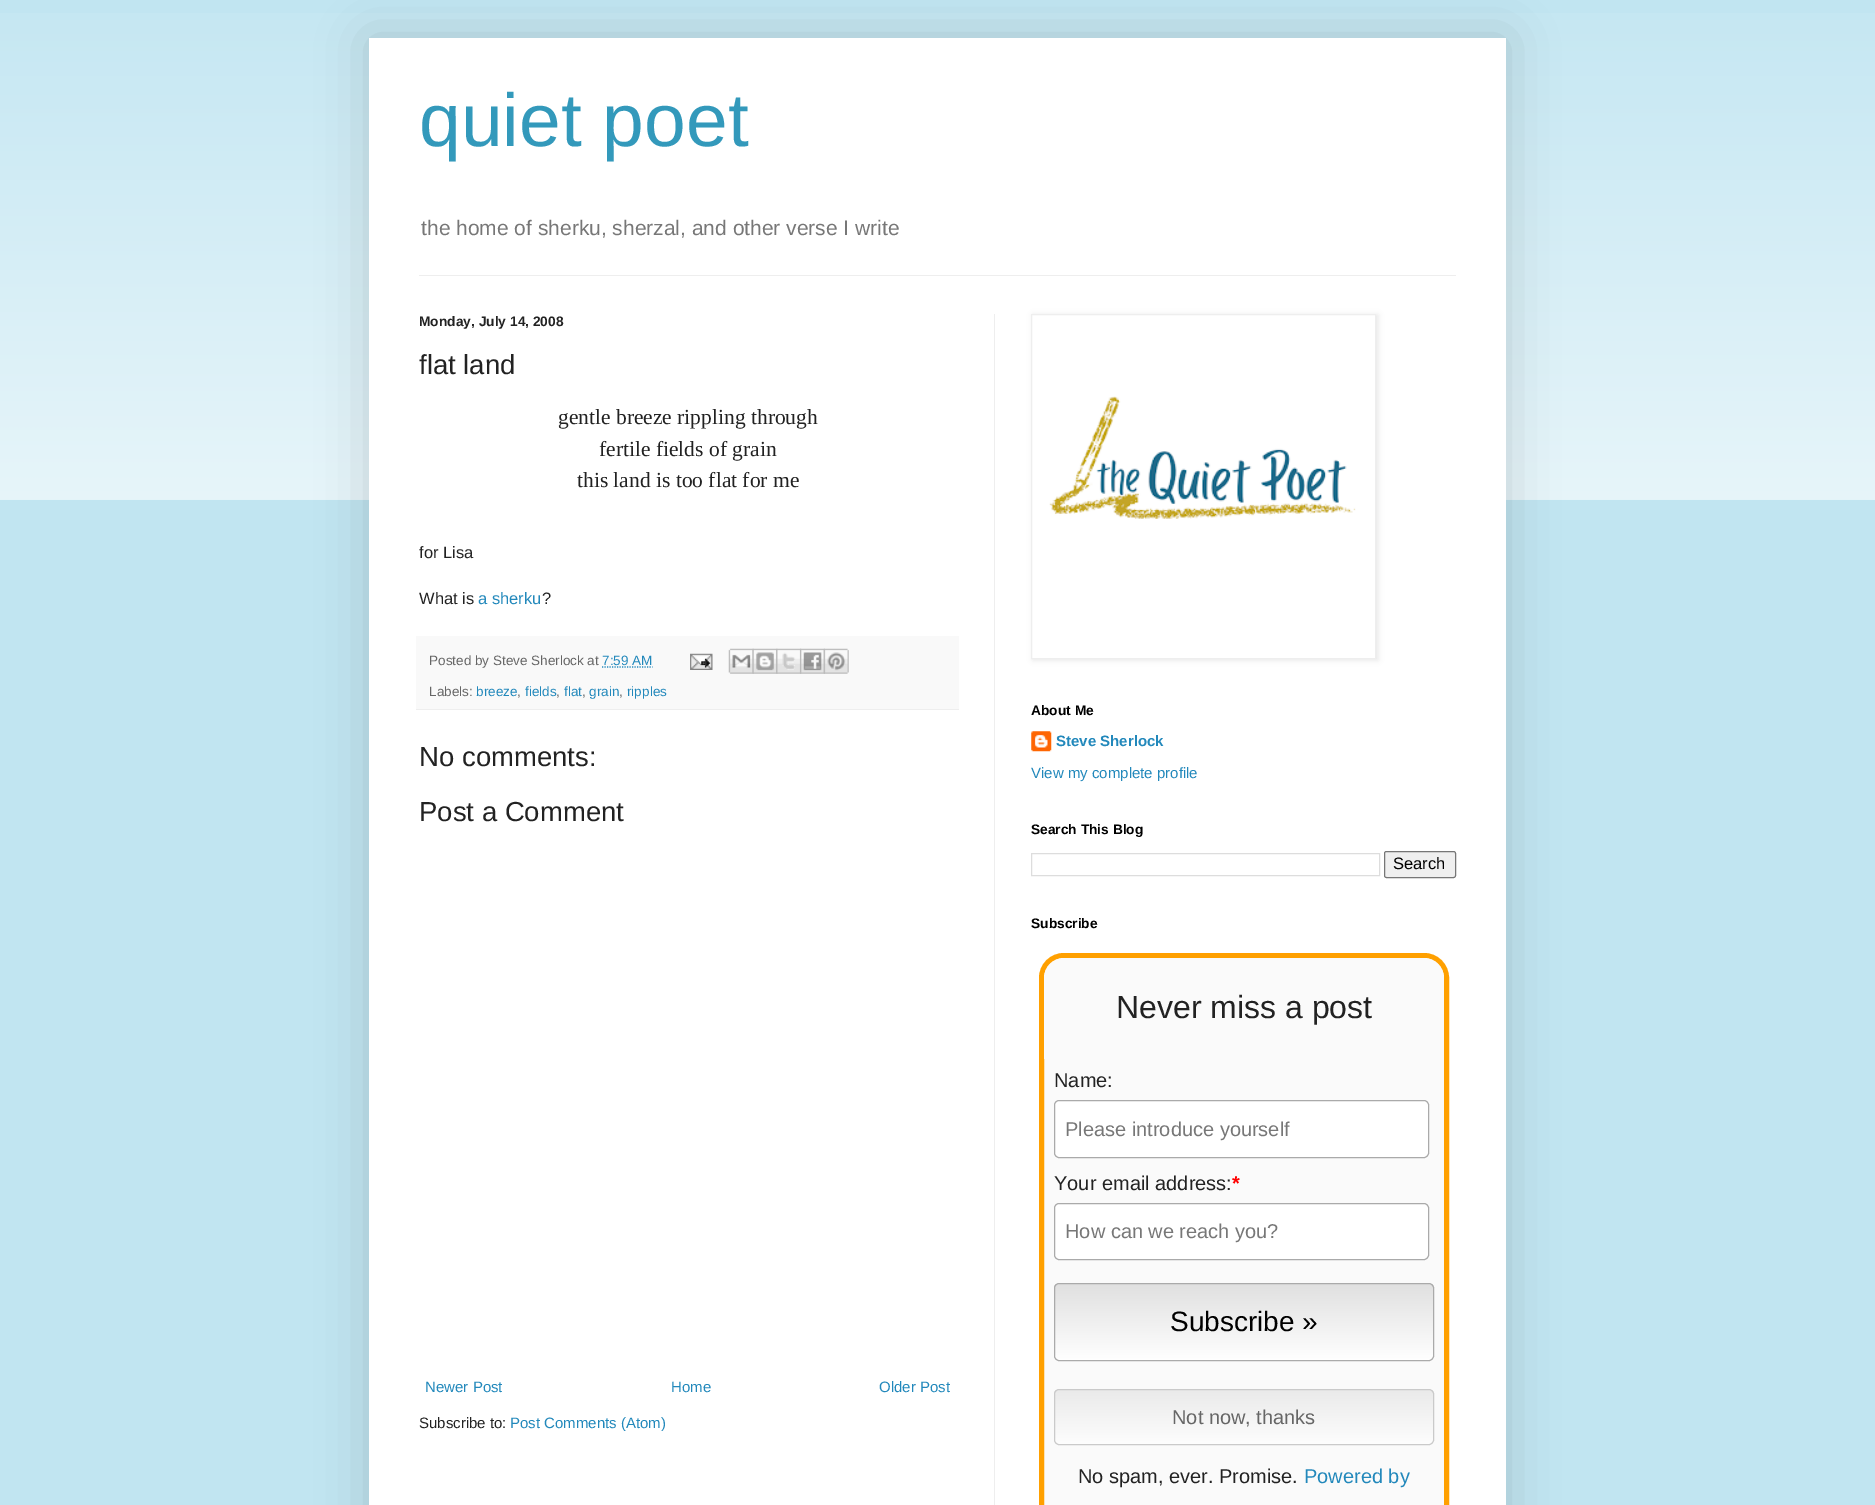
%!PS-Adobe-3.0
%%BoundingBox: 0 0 1875 1505
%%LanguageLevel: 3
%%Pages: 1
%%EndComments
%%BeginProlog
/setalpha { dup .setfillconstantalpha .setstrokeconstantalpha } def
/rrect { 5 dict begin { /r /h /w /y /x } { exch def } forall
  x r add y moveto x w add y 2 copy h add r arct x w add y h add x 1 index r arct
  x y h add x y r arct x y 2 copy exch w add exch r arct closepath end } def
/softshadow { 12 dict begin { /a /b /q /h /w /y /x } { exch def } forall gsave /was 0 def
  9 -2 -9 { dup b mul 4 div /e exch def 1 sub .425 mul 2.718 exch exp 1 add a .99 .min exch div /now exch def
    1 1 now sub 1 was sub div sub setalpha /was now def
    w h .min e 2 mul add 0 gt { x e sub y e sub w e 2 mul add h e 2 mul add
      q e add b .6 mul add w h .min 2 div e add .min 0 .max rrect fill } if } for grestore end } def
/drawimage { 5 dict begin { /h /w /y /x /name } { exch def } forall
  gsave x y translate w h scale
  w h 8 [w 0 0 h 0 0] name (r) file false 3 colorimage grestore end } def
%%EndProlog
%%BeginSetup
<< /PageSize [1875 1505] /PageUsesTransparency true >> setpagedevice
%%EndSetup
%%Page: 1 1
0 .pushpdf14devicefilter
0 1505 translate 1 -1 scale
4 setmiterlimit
0.757 0.898 0.945 setrgbcolor
0 0 1875 1505 rectfill
(images/1.raw) 0 13 1875 487 drawimage
0 setgray
369 38 1137 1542 0 25 0.15 softshadow
1 setgray
369 38 1137 1467 rectfill
0.933 setgray
419 275 1037 1 rectfill
994 314 1 1191 rectfill
0.976 setgray
416 636 543 73 rectfill
0.933 setgray
416 709 543 1 rectfill
0.133 0.533 0.733 setrgbcolor
1.2 setlinewidth
[1.25 1.25] 0 setdash
newpath 602 667 moveto 652.5 667 lineto stroke
(images/2.raw) 690 653 23 17 drawimage
(images/3.raw) 728 648 26 26 drawimage
(images/4.raw) 752 648 26 26 drawimage
(images/5.raw) 776 648 26 26 drawimage
(images/6.raw) 800 648 25 26 drawimage
(images/7.raw) 823 648 26 26 drawimage
0 setgray
1033 315 345 345 0 3 0.1 softshadow
1 setgray
newpath 1031.5 314.5 moveto 1375.5 314.5 lineto 1375.5 658.5 lineto 1031.5 658.5 lineto closepath gsave fill grestore
0.933 setgray
1 setlinewidth
[] 0 setdash
stroke
(images/8.raw) 1049 396 307 123 drawimage
(images/9.raw) 1031 731 21 21 drawimage
0.867 setgray
1031.5 853.5 348 22 rectstroke
0.937 setgray
1384.5 851.5 71 26 2 rrect gsave fill grestore
0.463 setgray
stroke
0.98 setgray
1041.5 955.5 405 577 22.5 rrect gsave fill grestore
1 0.627 0 setrgbcolor
5 setlinewidth
stroke
0.98 setgray
newpath 1064 958 moveto 1424 958 lineto 1435 958 1444 967 1444 978 curveto 1444 1059 lineto 1044 1059 lineto 1044 978 lineto 1044 967 1053 958 1064 958 curveto closepath fill
1 setgray
1054.5 1100.5 374 57 4.5 rrect gsave fill grestore
0.667 setgray
1 setlinewidth
stroke
1 setgray
1054.5 1203.5 374 56 4.5 rrect gsave fill grestore
0.667 setgray
stroke
gsave
1054 1283 380 78 5 rrect clip newpath
gsave newpath 1054 1284 moveto 1434 1284 lineto 1434 1360 lineto 1054 1360 lineto closepath clip newpath
<< /ShadingType 2 /ColorSpace /DeviceRGB /Coords [1244 1284 1244 1360] /Extend [true true] /Function << /FunctionType 2 /Domain [0 1] /C0 [0.878 0.878 0.878] /C1 [1 1 1] /N 1 >> >> shfill grestore
grestore
1054.5 1283.5 379 77 4.5 rrect stroke
gsave
1054 1389 380 56 5 rrect clip newpath
gsave newpath 1054 1390 moveto 1434 1390 lineto 1434 1444 lineto 1054 1444 lineto closepath clip newpath
<< /ShadingType 2 /ColorSpace /DeviceRGB /Coords [1244 1390 1244 1444] /Extend [true true] /Function << /FunctionType 2 /Domain [0 1] /C0 [0.918 0.918 0.918] /C1 [0.992 0.992 0.992] /N 1 >> >> shfill grestore
grestore
0.792 setgray
1054.5 1389.5 379 55 4.5 rrect stroke
/LiberationSans-Regular [75 0 0 -75 0 0] selectfont
0.2 0.6 0.733 setrgbcolor
419 146 moveto (quiet poet) show
/LiberationSans-Regular [21 0 0 -21 0 0] selectfont
0.467 setgray
421 235 moveto (the home of sherku, sherzal, and other verse I write) show
/LiberationSans-Bold [13.75 0 0 -13.75 0 0] selectfont
0.133 setgray
419 326 moveto (Monday, July 14, 2008) show
/LiberationSans-Regular [27.5 0 0 -27.5 0 0] selectfont
419 374 moveto (flat land) show
/LiberationSerif-Regular [21.5 0 0 -21.5 0 0] selectfont
558 424 moveto (gentle breeze rippling through) show
599 456 moveto (fertile fields of grain) show
577 487 moveto (this land is too flat for me) show
/LiberationSans-Regular [16.5 0 0 -16.5 0 0] selectfont
419 558 moveto (for Lisa) show
419 604 moveto (What is) show
0.133 0.533 0.733 setrgbcolor
478 604 moveto (a sherku) show
0.133 setgray
542 604 moveto (?) show
/LiberationSans-Regular [13.5 0 0 -13.5 0 0] selectfont
0.4 setgray
429 665 moveto (Posted by Steve Sherlock at) show
0.133 0.533 0.733 setrgbcolor
602 665 moveto (7:59 AM) show
0.4 setgray
429 696 moveto (Labels:) show
0.133 0.533 0.733 setrgbcolor
476 696 moveto (breeze) show
0.4 setgray
517 696 moveto (,) show
0.133 0.533 0.733 setrgbcolor
525 696 moveto (fields) show
0.4 setgray
556 696 moveto (,) show
0.133 0.533 0.733 setrgbcolor
564 696 moveto (flat) show
0.4 setgray
582 696 moveto (,) show
0.133 0.533 0.733 setrgbcolor
589 696 moveto (grain) show
0.4 setgray
619 696 moveto (,) show
0.133 0.533 0.733 setrgbcolor
627 696 moveto (ripples) show
/LiberationSans-Regular [27.5 0 0 -27.5 0 0] selectfont
0.133 setgray
419 766 moveto (No comments:) show
419 821 moveto (Post a Comment) show
/LiberationSans-Regular [15 0 0 -15 0 0] selectfont
0.133 0.533 0.733 setrgbcolor
425 1392 moveto (Newer Post) show
671 1392 moveto (Home) show
879 1392 moveto (Older Post) show
0.133 setgray
419 1428 moveto (Subscribe to:) show
0.133 0.533 0.733 setrgbcolor
510 1428 moveto (Post Comments \(Atom\)) show
/LiberationSans-Bold [13.75 0 0 -13.75 0 0] selectfont
0 setgray
1031 715 moveto (About Me) show
/LiberationSans-Bold [15 0 0 -15 0 0] selectfont
0.133 0.533 0.733 setrgbcolor
1056 746 moveto (Steve Sherlock) show
/LiberationSans-Regular [15 0 0 -15 0 0] selectfont
1031 778 moveto (View my complete profile) show
/LiberationSans-Bold [13.75 0 0 -13.75 0 0] selectfont
0 setgray
1031 834 moveto (Search This Blog) show
/LiberationSans-Regular [16.5 0 0 -16.5 0 0] selectfont
1393 869 moveto (Search) show
/LiberationSans-Bold [13.75 0 0 -13.75 0 0] selectfont
1031 928 moveto (Subscribe) show
/LiberationSans-Regular [32 0 0 -32 0 0] selectfont
0.133 setgray
1116 1018 moveto (Never miss a post) show
/LiberationSans-Regular [20 0 0 -20 0 0] selectfont
1054 1087 moveto (Name:) show
0.467 setgray
1065 1136 moveto (Please introduce yourself) show
0.133 setgray
1054 1190 moveto (Your email address:) show
/LiberationSans-Bold [20 0 0 -20 0 0] selectfont
1 0 0 setrgbcolor
1232 1190 moveto (*) show
/LiberationSans-Regular [20 0 0 -20 0 0] selectfont
0.467 setgray
1065 1238 moveto (How can we reach you?) show
/LiberationSans-Regular [28 0 0 -28 0 0] selectfont
0 setgray
1170 1331 moveto (Subscribe ») show
/LiberationSans-Regular [20 0 0 -20 0 0] selectfont
0.4 setgray
1172 1424 moveto (Not now, thanks) show
0.133 setgray
1078 1483 moveto (No spam, ever. Promise.) show
0.133 0.533 0.733 setrgbcolor
1304 1483 moveto (Powered by) show
.poppdf14devicefilter showpage
%%EOF
